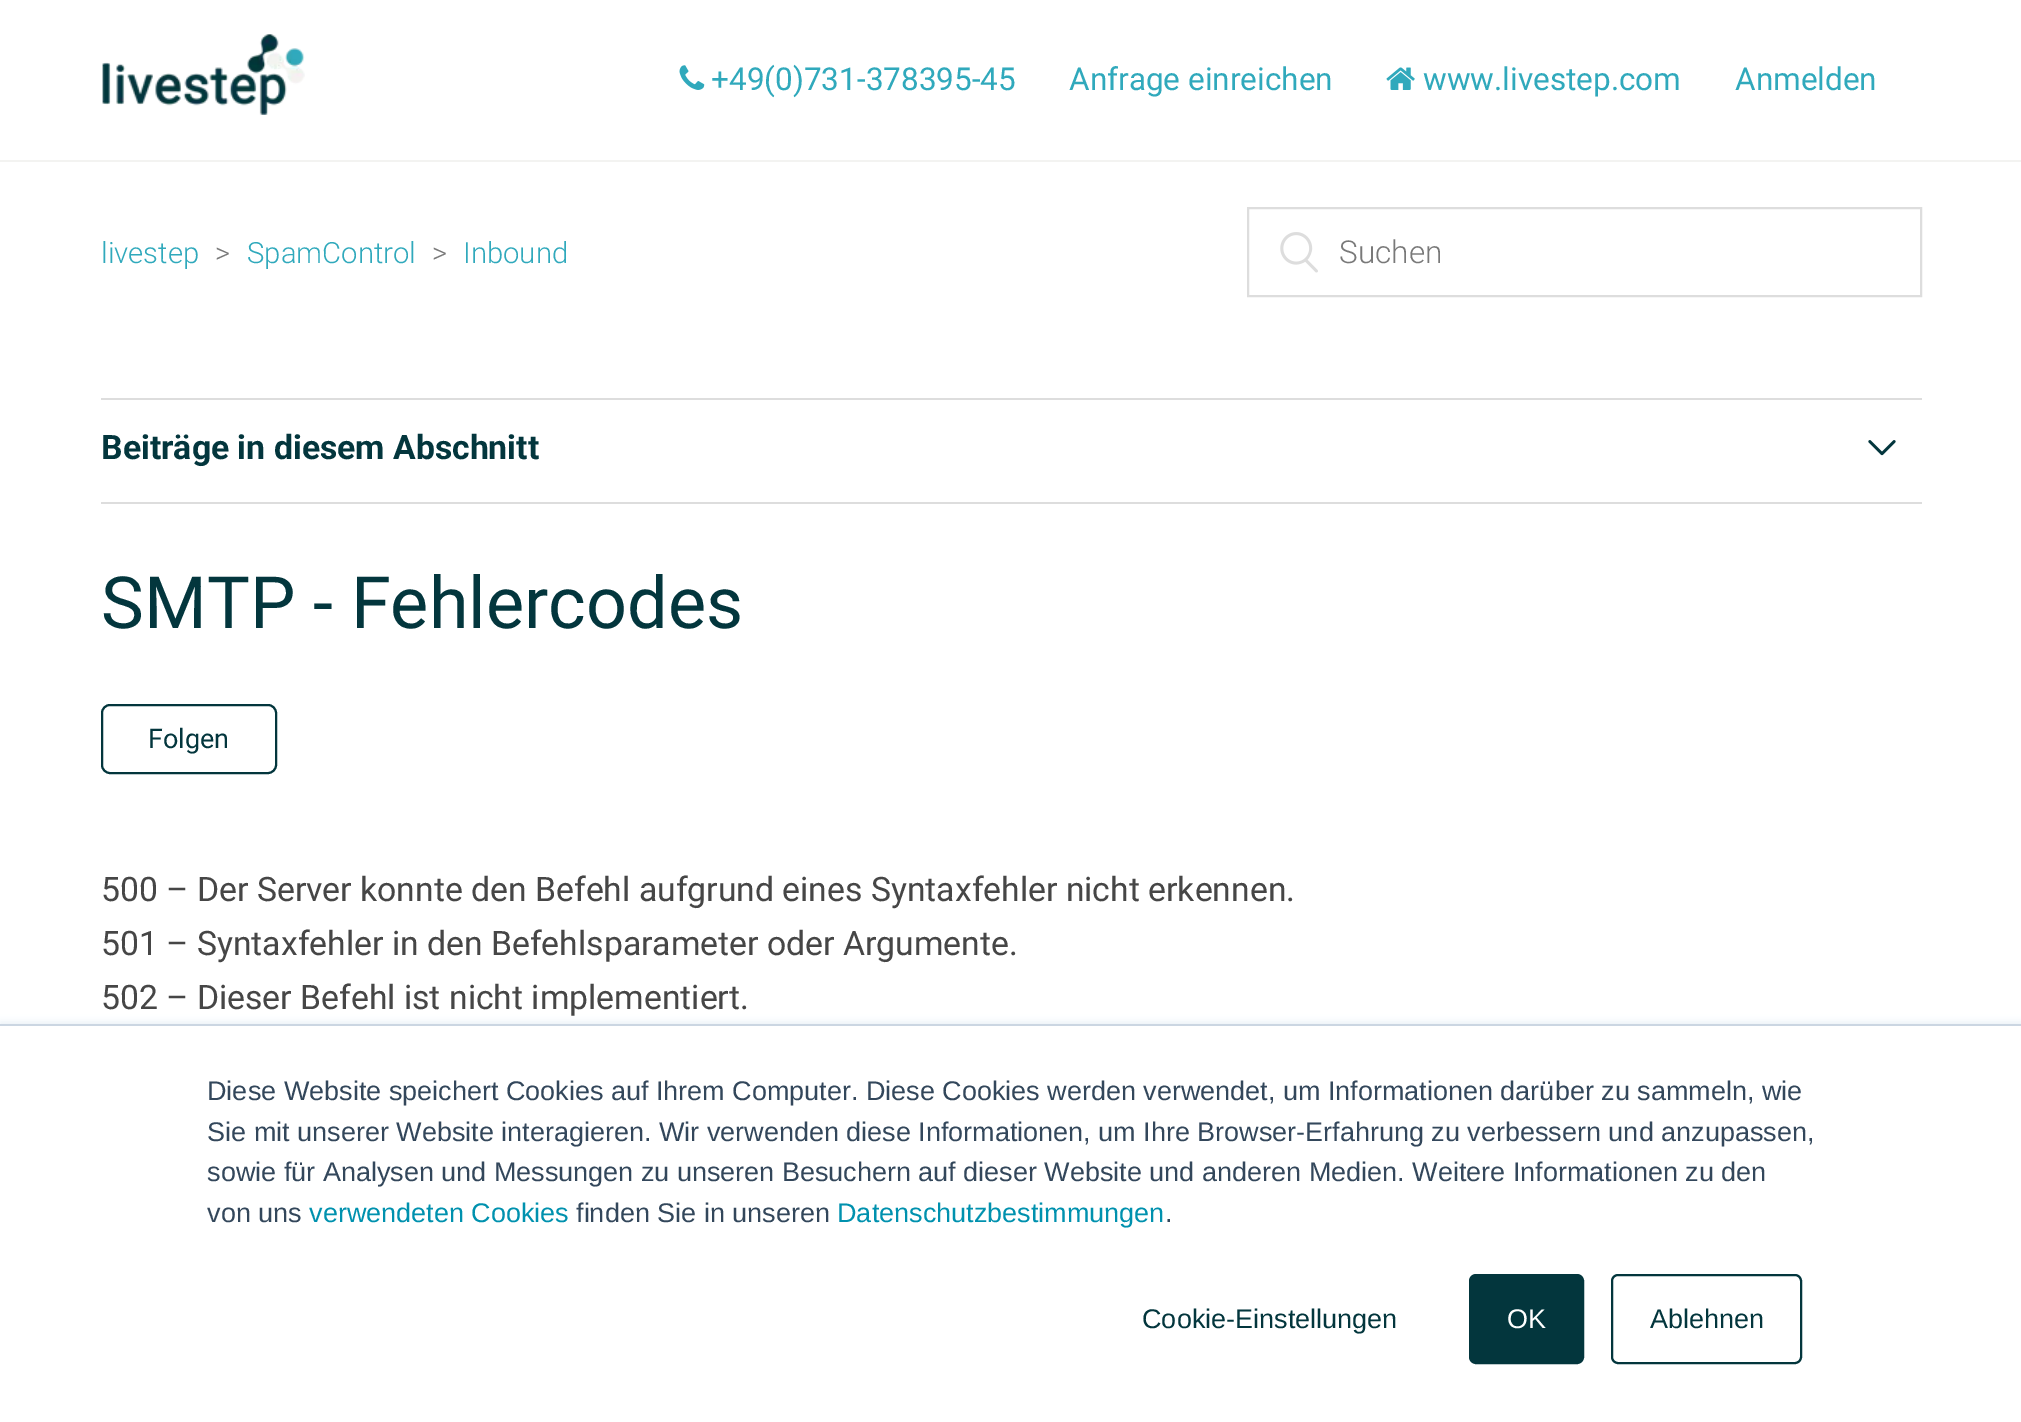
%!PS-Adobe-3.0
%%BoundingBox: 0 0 2021 1422
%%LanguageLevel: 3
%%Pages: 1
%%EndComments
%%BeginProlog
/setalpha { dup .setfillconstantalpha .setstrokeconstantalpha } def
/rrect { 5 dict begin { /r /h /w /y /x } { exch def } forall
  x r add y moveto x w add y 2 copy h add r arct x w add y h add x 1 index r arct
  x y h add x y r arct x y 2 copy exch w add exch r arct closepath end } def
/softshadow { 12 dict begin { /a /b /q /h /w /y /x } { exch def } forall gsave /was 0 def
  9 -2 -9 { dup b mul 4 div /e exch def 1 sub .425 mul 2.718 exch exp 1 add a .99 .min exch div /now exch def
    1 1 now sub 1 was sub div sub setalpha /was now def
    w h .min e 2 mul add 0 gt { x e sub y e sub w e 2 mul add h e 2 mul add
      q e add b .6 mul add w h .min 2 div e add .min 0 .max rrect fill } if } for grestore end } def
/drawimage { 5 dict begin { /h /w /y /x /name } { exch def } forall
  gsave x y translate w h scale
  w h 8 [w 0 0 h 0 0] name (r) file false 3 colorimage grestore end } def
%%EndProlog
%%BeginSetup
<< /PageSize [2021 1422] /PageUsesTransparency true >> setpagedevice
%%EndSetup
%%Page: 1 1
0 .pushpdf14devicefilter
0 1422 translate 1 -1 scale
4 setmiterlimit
1 setgray
0 0 2021 1422 rectfill
(images/1.raw) 102 34 203 81 drawimage
(images/2.raw) 679 65 26 25 drawimage
(images/3.raw) 1386 67 29 23 drawimage
0.953 0.953 0.945 setrgbcolor
0 160 2021 2 rectfill
0.867 setgray
2 setlinewidth
1248 208 673 88 rectstroke
(images/4.raw) 1280 232 38 41 drawimage
101 398 1821 2 rectfill
101 502 1821 2 rectfill
(images/5.raw) 1868 440 28 16 drawimage
0.012 0.212 0.239 setrgbcolor
102 705 174 68 8 rrect stroke
0.918 0.941 0.965 setrgbcolor
0 1022 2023 398 0 3.5 1 softshadow
1 setgray
0 1026 2021 396 rectfill
0.796 0.839 0.886 setrgbcolor
0 1024 2021 2 rectfill
0.012 0.212 0.239 setrgbcolor
1470 1275 113 88 6 rrect gsave fill grestore
stroke
1612 1275 189 88 6 rrect stroke
/Roboto-Regular [31.5 0 0 -31.5 0 0] selectfont
0.188 0.663 0.737 setrgbcolor
711 90 moveto (+49\(0\)731-378395-45) show
1069 90 moveto (Anfrage einreichen) show
1423 90 moveto (www.livestep.com) show
1735 90 moveto (Anmelden) show
/Roboto-Light [29.25 0 0 -29.25 0 0] selectfont
101 263 moveto (livestep) show
0.475 setgray
215 263 moveto (>) show
0.188 0.663 0.737 setrgbcolor
247 263 moveto (SpamControl) show
0.475 setgray
432 263 moveto (>) show
0.188 0.663 0.737 setrgbcolor
463 263 moveto (Inbound) show
/Roboto-Light [31.5 0 0 -31.5 0 0] selectfont
0.475 setgray
1339 263 moveto (Suchen) show
/Roboto-Bold [33.75 0 0 -33.75 0 0] selectfont
0.012 0.212 0.239 setrgbcolor
101 459 moveto (Beiträge in diesem Abschnitt) show
/Roboto-Regular [72 0 0 -72 0 0] selectfont
101 628 moveto (SMTP - Fehlercodes) show
/Roboto-Regular [27 0 0 -27 0 0] selectfont
148 748 moveto (Folgen) show
/Roboto-Regular [33.75 0 0 -33.75 0 0] selectfont
0.275 setgray
101 901 moveto (500 – Der Server konnte den Befehl aufgrund eines Syntaxfehler nicht erkennen.) show
101 955 moveto (501 – Syntaxfehler in den Befehlsparameter oder Argumente.) show
101 1009 moveto (502 – Dieser Befehl ist nicht implementiert.) show
/LiberationSans-Regular [27 0 0 -27 0 0] selectfont
0.2 0.278 0.357 setrgbcolor
207 1100 moveto (Diese Website speichert Cookies auf Ihrem Computer. Diese Cookies werden verwendet, um Informationen darüber zu sammeln, wie) show
207 1141 moveto (Sie mit unserer Website interagieren. Wir verwenden diese Informationen, um Ihre Browser-Erfahrung zu verbessern und anzupassen,) show
207 1181 moveto (sowie für Analysen und Messungen zu unseren Besuchern auf dieser Website und anderen Medien. Weitere Informationen zu den) show
207 1222 moveto (von uns) show
0 0.569 0.682 setrgbcolor
309 1222 moveto (verwendeten Cookies) show
0.2 0.278 0.357 setrgbcolor
576 1222 moveto (finden Sie in unseren) show
0 0.569 0.682 setrgbcolor
837 1222 moveto (Datenschutzbestimmungen) show
0.2 0.278 0.357 setrgbcolor
1165 1222 moveto (.) show
0.012 0.212 0.239 setrgbcolor
1142 1328 moveto (Cookie-Einstellungen) show
1 setgray
1507 1328 moveto (OK) show
0.012 0.212 0.239 setrgbcolor
1650 1328 moveto (Ablehnen) show
.poppdf14devicefilter showpage
%%EOF
